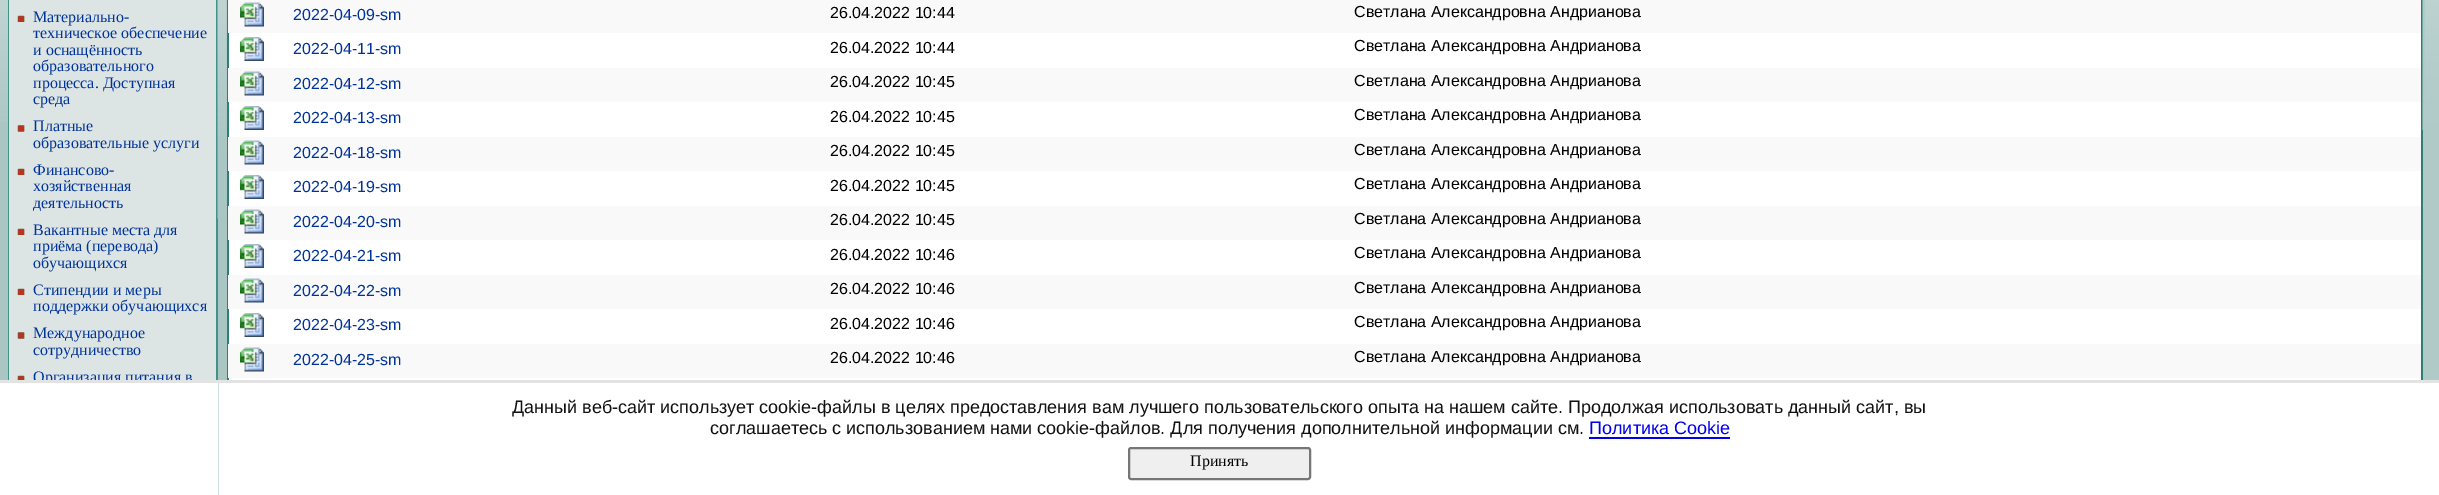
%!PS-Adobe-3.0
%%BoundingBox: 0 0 2439 495
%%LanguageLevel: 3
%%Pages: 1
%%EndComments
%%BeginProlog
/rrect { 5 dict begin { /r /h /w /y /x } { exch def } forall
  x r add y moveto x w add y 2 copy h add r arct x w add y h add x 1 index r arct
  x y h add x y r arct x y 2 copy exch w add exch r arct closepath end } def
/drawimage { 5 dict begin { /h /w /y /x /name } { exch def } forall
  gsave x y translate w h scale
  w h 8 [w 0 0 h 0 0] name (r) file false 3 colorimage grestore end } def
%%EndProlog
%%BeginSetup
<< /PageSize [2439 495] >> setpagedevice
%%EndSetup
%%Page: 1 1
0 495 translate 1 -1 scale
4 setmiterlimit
1 setgray
0 0 2439 495 rectfill
0.663 0.776 0.765 setrgbcolor
0 122 8 258 rectfill
(images/1.raw) 0 0 8 122 drawimage
0.247 0.576 0.541 setrgbcolor
2 setlinewidth
9 -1 208 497 rectstroke
0.863 0.898 0.894 setrgbcolor
9 0 207 380 rectfill
(images/2.raw) 17 15 8 7 drawimage
(images/3.raw) 17 15 8 7 drawimage
(images/4.raw) 17 125 8 7 drawimage
(images/5.raw) 17 125 8 7 drawimage
(images/2.raw) 17 168 8 7 drawimage
(images/3.raw) 17 168 8 7 drawimage
(images/2.raw) 17 228 8 7 drawimage
(images/3.raw) 17 228 8 7 drawimage
(images/2.raw) 17 288 8 7 drawimage
(images/3.raw) 17 288 8 7 drawimage
(images/4.raw) 17 332 8 7 drawimage
(images/5.raw) 17 332 8 7 drawimage
(images/6.raw) 17 375 8 5 drawimage
(images/7.raw) 17 375 8 5 drawimage
0.663 0.776 0.765 setrgbcolor
218 0 9 380 rectfill
(images/8.raw) 217 0 10 219 drawimage
0.176 0.498 0.459 setrgbcolor
2421 0 2 380 rectfill
227 0 2 380 rectfill
0.976 setgray
228 0 2193 33 rectfill
(images/9.raw) 240 2 24 25 drawimage
(images/10.raw) 240 37 24 24 drawimage
228 68 2193 34 rectfill
(images/9.raw) 240 71 24 25 drawimage
(images/10.raw) 240 106 24 24 drawimage
228 137 2193 34 rectfill
(images/9.raw) 240 140 24 25 drawimage
(images/10.raw) 240 175 24 24 drawimage
228 206 2193 34 rectfill
(images/9.raw) 240 209 24 25 drawimage
(images/10.raw) 240 244 24 24 drawimage
228 275 2193 34 rectfill
(images/9.raw) 240 278 24 25 drawimage
(images/10.raw) 240 313 24 24 drawimage
228 344 2193 34 rectfill
(images/9.raw) 240 347 24 25 drawimage
0.686 0.792 0.78 setrgbcolor
2425 130 14 250 rectfill
(images/11.raw) 2422 0 17 130 drawimage
2423 0 2 380 rectfill
0 0 0.933 setrgbcolor
1589 437 141 2 rectfill
0.937 setgray
1129 448 181 31 2 rrect gsave fill grestore
0.463 setgray
stroke
/LiberationSerif-Regular [16 0 0 -16 0 0] selectfont
0 0.2 0.6 setrgbcolor
33 22 moveto (Материально-) show
33 38 moveto (техническое обеспечение) show
33 55 moveto (и оснащённость) show
33 71 moveto (образовательного) show
33 88 moveto (процесса. Доступная) show
33 104 moveto (среда) show
33 131 moveto (Платные) show
33 148 moveto (образовательные услуги) show
33 175 moveto (Финансово-) show
33 191 moveto (хозяйственная) show
33 208 moveto (деятельность) show
33 235 moveto (Вакантные места для) show
33 251 moveto (приёма \(перевода\)) show
33 268 moveto (обучающихся) show
33 295 moveto (Стипендии и меры) show
33 311 moveto (поддержки обучающихся) show
33 338 moveto (Международное) show
33 355 moveto (сотрудничество) show
33 382 moveto (Организация питания в) show
/LiberationSans-Regular [16 0 0 -16 0 0] selectfont
293 20 moveto (2022-04-09-sm) show
0 setgray
830 18 moveto (26.04.2022 10:44) show
1354 17 moveto (Светлана Александровна Андрианова) show
0 0.2 0.6 setrgbcolor
293 54 moveto (2022-04-11-sm) show
0 setgray
830 53 moveto (26.04.2022 10:44) show
1354 51 moveto (Светлана Александровна Андрианова) show
0 0.2 0.6 setrgbcolor
293 89 moveto (2022-04-12-sm) show
0 setgray
830 87 moveto (26.04.2022 10:45) show
1354 86 moveto (Светлана Александровна Андрианова) show
0 0.2 0.6 setrgbcolor
293 123 moveto (2022-04-13-sm) show
0 setgray
830 122 moveto (26.04.2022 10:45) show
1354 120 moveto (Светлана Александровна Андрианова) show
0 0.2 0.6 setrgbcolor
293 158 moveto (2022-04-18-sm) show
0 setgray
830 156 moveto (26.04.2022 10:45) show
1354 155 moveto (Светлана Александровна Андрианова) show
0 0.2 0.6 setrgbcolor
293 192 moveto (2022-04-19-sm) show
0 setgray
830 191 moveto (26.04.2022 10:45) show
1354 189 moveto (Светлана Александровна Андрианова) show
0 0.2 0.6 setrgbcolor
293 227 moveto (2022-04-20-sm) show
0 setgray
830 225 moveto (26.04.2022 10:45) show
1354 224 moveto (Светлана Александровна Андрианова) show
0 0.2 0.6 setrgbcolor
293 261 moveto (2022-04-21-sm) show
0 setgray
830 260 moveto (26.04.2022 10:46) show
1354 258 moveto (Светлана Александровна Андрианова) show
0 0.2 0.6 setrgbcolor
293 296 moveto (2022-04-22-sm) show
0 setgray
830 294 moveto (26.04.2022 10:46) show
1354 293 moveto (Светлана Александровна Андрианова) show
0 0.2 0.6 setrgbcolor
293 330 moveto (2022-04-23-sm) show
0 setgray
830 329 moveto (26.04.2022 10:46) show
1354 327 moveto (Светлана Александровна Андрианова) show
0 0.2 0.6 setrgbcolor
293 365 moveto (2022-04-25-sm) show
0 setgray
830 363 moveto (26.04.2022 10:46) show
1354 362 moveto (Светлана Александровна Андрианова) show
1 setgray
8 383 210 112 rectfill
0.89 setgray
0 380 2439 3 rectfill
/LiberationSans-Regular [18 0 0 -18 0 0] selectfont
0.067 setgray
512 413 moveto (Данный веб-сайт использует cookie-файлы в целях предоставления вам лучшего пользовательского опыта на нашем сайте. Продолжая использовать данный сайт, вы) show
710 434 moveto (соглашаетесь с использованием нами cookie-файлов. Для получения дополнительной информации см.) show
0 0 0.933 setrgbcolor
1589 434 moveto (Политика Cookie) show
/LiberationSerif-Regular [16 0 0 -16 0 0] selectfont
0 setgray
1190 466 moveto (Принять) show
showpage
%%EOF
